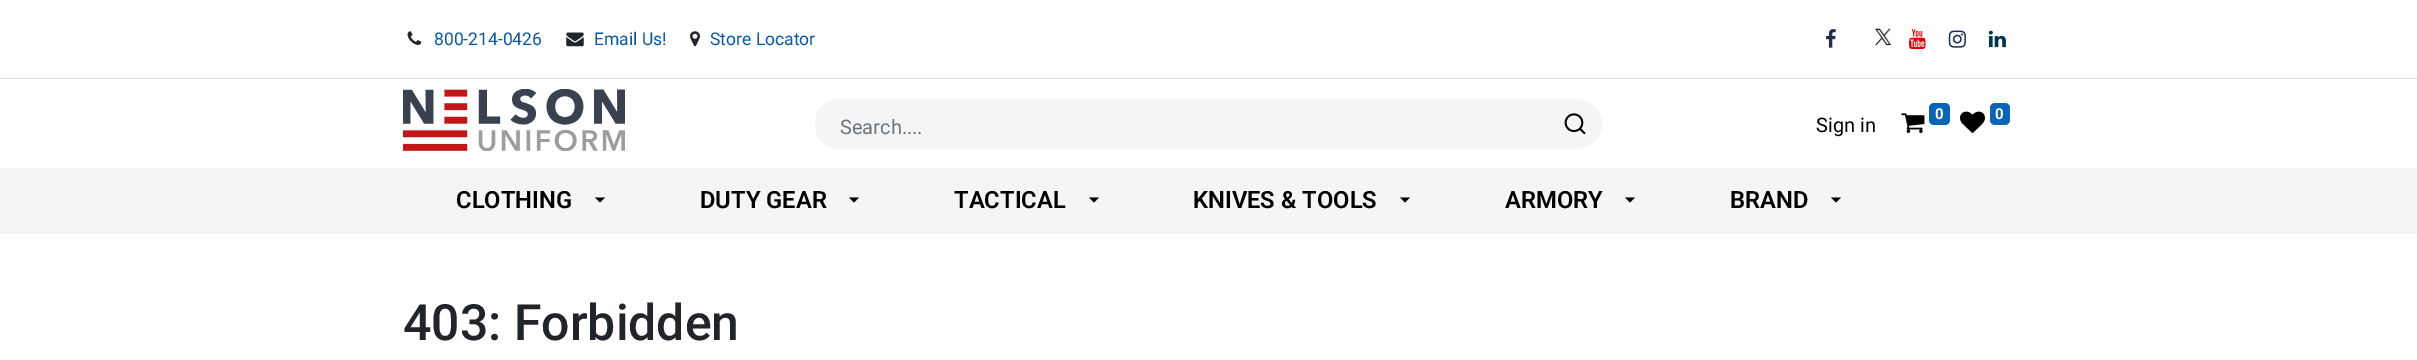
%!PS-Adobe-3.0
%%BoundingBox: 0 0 2417 360
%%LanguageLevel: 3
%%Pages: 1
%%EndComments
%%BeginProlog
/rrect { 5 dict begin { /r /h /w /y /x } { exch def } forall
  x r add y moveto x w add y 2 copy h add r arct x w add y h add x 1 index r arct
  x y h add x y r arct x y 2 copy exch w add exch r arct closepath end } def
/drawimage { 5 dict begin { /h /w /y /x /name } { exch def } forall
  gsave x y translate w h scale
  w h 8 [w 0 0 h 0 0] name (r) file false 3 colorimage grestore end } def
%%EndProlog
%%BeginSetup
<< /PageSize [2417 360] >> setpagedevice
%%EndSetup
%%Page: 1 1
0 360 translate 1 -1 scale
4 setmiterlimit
1 setgray
0 0 2417 360 rectfill
0.871 0.886 0.902 setrgbcolor
0 78 2417 1 rectfill
(images/1.raw) 407 31 15 14 drawimage
(images/2.raw) 566 32 18 15 drawimage
(images/3.raw) 690 31 10 16 drawimage
(images/4.raw) 1826 29 10 19 drawimage
(images/5.raw) 1875 28 17 17 drawimage
(images/6.raw) 1909 29 17 21 drawimage
(images/7.raw) 1948 30 18 18 drawimage
(images/8.raw) 1988 30 18 18 drawimage
(images/9.raw) 403 89 222 62 drawimage
0.961 setgray
newpath 840 99 moveto 1544 99 lineto 1544 149 lineto 840 149 lineto 826 149 815 138 815 124 curveto 815 110 826 99 840 99 curveto closepath fill
newpath 1544 99 moveto 1573 99 lineto 1589 99 1602 110 1602 124 curveto 1602 138 1589 149 1573 149 curveto 1544 149 lineto closepath fill
(images/10.raw) 1564 113 22 22 drawimage
(images/11.raw) 1901 113 24 20 drawimage
0.043 0.392 0.706 setrgbcolor
1929 103 21 22 5 rrect fill
(images/12.raw) 1960 111 25 22 drawimage
1990 103 20 22 5 rrect fill
0.961 setgray
0 168 2417 66 rectfill
0 setgray
newpath 595 197.5 moveto 605 197.5 lineto 600 202.5 lineto closepath fill
newpath 849 197.5 moveto 859 197.5 lineto 854 202.5 lineto closepath fill
newpath 1089 197.5 moveto 1099 197.5 lineto 1094 202.5 lineto closepath fill
newpath 1400 197.5 moveto 1410 197.5 lineto 1405 202.5 lineto closepath fill
newpath 1625 197.5 moveto 1635 197.5 lineto 1630 202.5 lineto closepath fill
newpath 1831 197.5 moveto 1841 197.5 lineto 1836 202.5 lineto closepath fill
/Roboto-Regular [17.5 0 0 -17.5 0 0] selectfont
0.039 0.349 0.631 setrgbcolor
434 45 moveto (800-214-0426) show
594 45 moveto (Email Us!) show
710 45 moveto (Store Locator) show
/Roboto-Regular [20 0 0 -20 0 0] selectfont
0.424 0.459 0.49 setrgbcolor
840 134 moveto (Search....) show
/Roboto-Bold [15 0 0 -15 0 0] selectfont
1 setgray
1935 119 moveto (0) show
1995 119 moveto (0) show
/Roboto-Regular [20 0 0 -20 0 0] selectfont
0 setgray
1816 132 moveto (Sign in) show
/Roboto-SemiBold [23.75 0 0 -23.75 0 0] selectfont
456 208 moveto (CLOTHING) show
700 208 moveto (DUTY GEAR) show
954 208 moveto (TACTICAL) show
1193 208 moveto (KNIVES & TOOLS) show
1505 208 moveto (ARMORY) show
1730 208 moveto (BRAND) show
/Roboto-Medium [50 0 0 -50 0 0] selectfont
0.129 0.145 0.161 setrgbcolor
403 340 moveto (403: Forbidden) show
showpage
%%EOF
